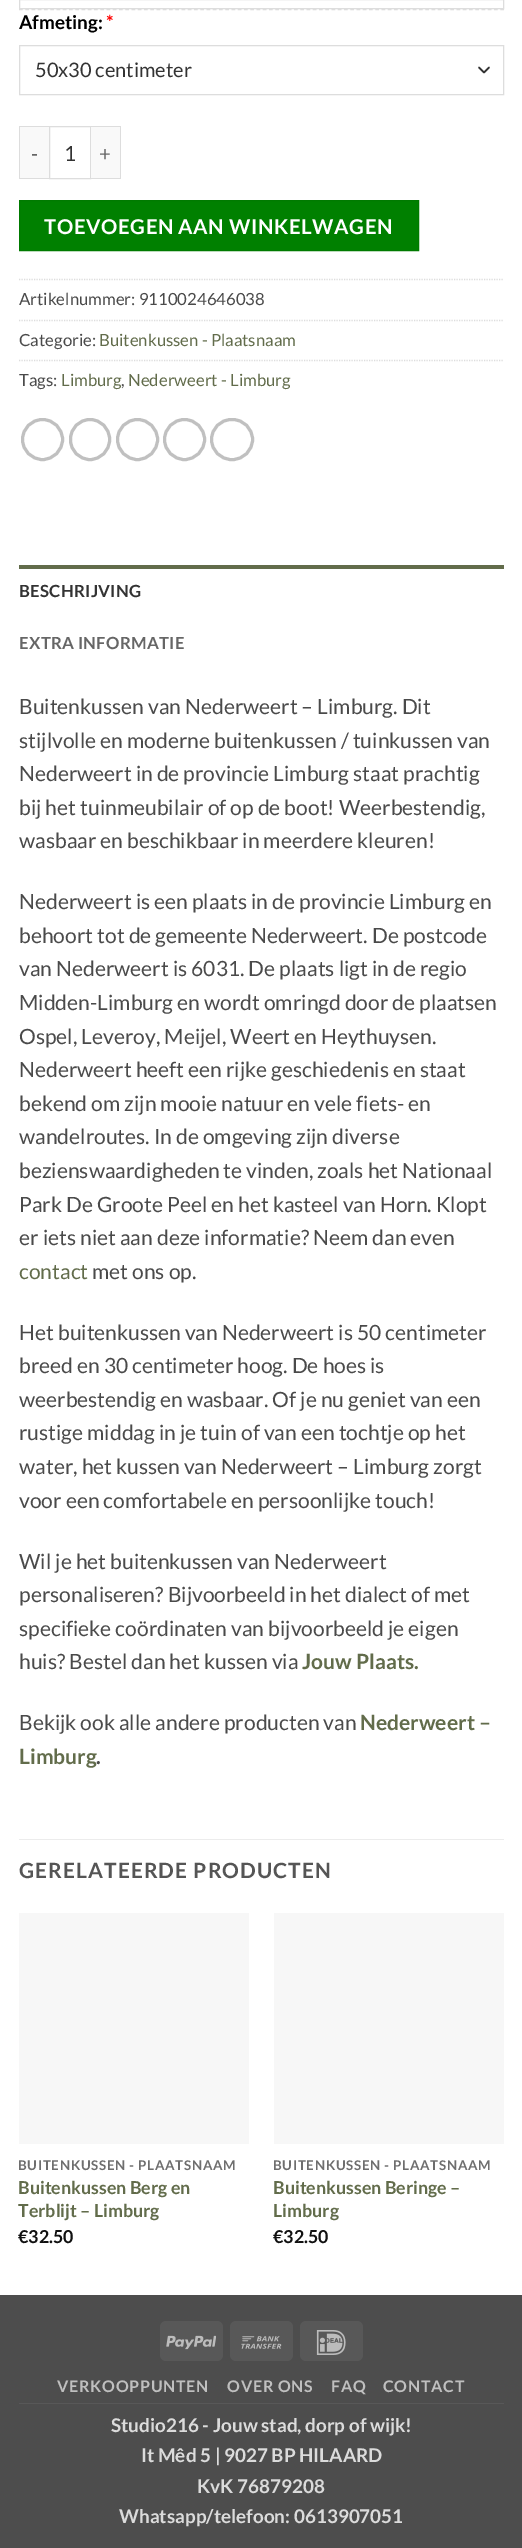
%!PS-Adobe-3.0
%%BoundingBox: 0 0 522 2548
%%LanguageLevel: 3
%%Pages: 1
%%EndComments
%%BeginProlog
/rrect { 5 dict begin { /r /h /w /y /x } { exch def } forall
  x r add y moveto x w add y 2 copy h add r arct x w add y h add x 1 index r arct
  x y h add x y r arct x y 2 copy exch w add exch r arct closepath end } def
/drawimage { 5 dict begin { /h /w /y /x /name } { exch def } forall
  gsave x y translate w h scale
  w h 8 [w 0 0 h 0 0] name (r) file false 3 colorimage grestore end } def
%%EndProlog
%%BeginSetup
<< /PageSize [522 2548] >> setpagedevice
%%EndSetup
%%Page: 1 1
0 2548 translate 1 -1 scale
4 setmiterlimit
1 setgray
0 0 522 2548 rectfill
0.867 setgray
1.2 setlinewidth
[3.75 2.5] 0 setdash
newpath 19 9.5 moveto 504 9.5 lineto stroke
1 setlinewidth
[] 0 setdash
19.5 -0.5 484 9 rectstroke
0.2 setgray
1.7 setlinewidth
1 setlinecap
1 setlinejoin
newpath 479 67.5 moveto 484 72.5 lineto 489 67.5 lineto stroke
0.867 setgray
1 setlinewidth
0 setlinecap
0 setlinejoin
19.5 45.5 484 49 rectstroke
0.976 setgray
20 127 29 51 rectfill
0.867 setgray
19 126 30 1 rectfill
19 178 30 1 rectfill
19 126 1 53 rectfill
49.5 126.5 41 52 rectstroke
0.976 setgray
91 127 29 51 rectfill
0.867 setgray
91 126 30 1 rectfill
120 126 1 53 rectfill
91 178 30 1 rectfill
0 0.502 0 setrgbcolor
newpath 19.5 200.5 moveto 418.5 200.5 lineto 418.5 250.5 lineto 19.5 250.5 lineto closepath gsave fill grestore
0 0.478 0 setrgbcolor
stroke
0.867 setgray
1.2 setlinewidth
[1.25 1.25] 0 setdash
newpath 19 279.5 moveto 504 279.5 lineto stroke
newpath 19 320.5 moveto 504 320.5 lineto stroke
newpath 19 360.5 moveto 504 360.5 lineto stroke
0.753 setgray
3 setlinewidth
[] 0 setdash
newpath 42.5 439.5 20 0 360 arc closepath stroke
70.5 419.5 39 40 19.5 rrect stroke
newpath 137.5 439.5 20 0 360 arc closepath stroke
newpath 184.5 439.5 20 0 360 arc closepath stroke
211.5 419.5 41 40 20 rrect stroke
0.384 0.424 0.294 setrgbcolor
19 565 485 4 rectfill
0.925 setgray
19 1839 485 1 rectfill
0.969 setgray
19 1913 230 231 rectfill
274 1913 230 231 rectfill
0.302 setgray
0 2295 522 253 rectfill
0.345 setgray
160 2321 63 40 6 rrect fill
(images/1.raw) 166 2335 50 15 drawimage
230 2321 63 40 6 rrect fill
(images/2.raw) 241 2336 41 13 drawimage
300 2321 63 40 6 rrect fill
(images/3.raw) 316 2330 30 25 drawimage
19 2403 485 1 rectfill
/Lato-Bold [18.9 0 0 -18.9 0 0] selectfont
0 setgray
19 29 moveto (Afmeting:) show
1 0 0 setrgbcolor
106 29 moveto (*) show
/Lato-Regular [20 0 0 -20 0 0] selectfont
0.2 setgray
35 77 moveto (50x30 centimeter) show
/Lato-Regular [20.4 0 0 -20.4 0 0] selectfont
0.4 setgray
31 161 moveto 0.6 0 (-) ashow
/Lato-Regular [21 0 0 -21 0 0] selectfont
0.2 setgray
64 161 moveto (1) show
/Lato-Regular [20.4 0 0 -20.4 0 0] selectfont
0.4 setgray
99 161 moveto 0.6 0 (+) ashow
/Lato-Bold [20.4 0 0 -20.4 0 0] selectfont
1 setgray
44 234 moveto 0.6 0 (TOEVOEGEN AAN WINKELWAGEN) ashow
/Lato-Regular [16.75 0 0 -16.75 0 0] selectfont
0.29 setgray
19 305 moveto (Artikelnummer: 9110024646038) show
19 346 moveto (Categorie:) show
0.384 0.424 0.294 setrgbcolor
99 346 moveto (Buitenkussen - Plaatsnaam) show
0.29 setgray
19 386 moveto (Tags:) show
0.384 0.424 0.294 setrgbcolor
61 386 moveto (Limburg) show
0.29 setgray
121 386 moveto (,) show
0.384 0.424 0.294 setrgbcolor
128 386 moveto (Nederweert - Limburg) show
/Lato-Bold [16.75 0 0 -16.75 0 0] selectfont
0.2 setgray
19 597 moveto 0.3 0 (BESCHRIJVING) ashow
0.4 setgray
19 649 moveto 0.3 0 (EXTRA INFORMATIE) ashow
/Lato-Regular [21 0 0 -21 0 0] selectfont
0.29 setgray
19 714 moveto (Buitenkussen van Nederweert – Limburg. Dit) show
19 748 moveto (stijlvolle en moderne buitenkussen / tuinkussen van) show
19 781 moveto (Nederweert in de provincie Limburg staat prachtig) show
19 815 moveto (bij het tuinmeubilair of op de boot! Weerbestendig,) show
19 848 moveto (wasbaar en beschikbaar in meerdere kleuren!) show
19 909 moveto (Nederweert is een plaats in de provincie Limburg en) show
19 943 moveto (behoort tot de gemeente Nederweert. De postcode) show
19 976 moveto (van Nederweert is 6031. De plaats ligt in de regio) show
19 1010 moveto (Midden-Limburg en wordt omringd door de plaatsen) show
19 1044 moveto (Ospel, Leveroy, Meijel, Weert en Heythuysen.) show
19 1077 moveto (Nederweert heeft een rijke geschiedenis en staat) show
19 1111 moveto (bekend om zijn mooie natuur en vele fiets- en) show
19 1144 moveto (wandelroutes. In de omgeving zijn diverse) show
19 1178 moveto (bezienswaardigheden te vinden, zoals het Nationaal) show
19 1212 moveto (Park De Groote Peel en het kasteel van Horn. Klopt) show
19 1245 moveto (er iets niet aan deze informatie? Neem dan even) show
0.384 0.424 0.294 setrgbcolor
19 1279 moveto (contact) show
0.29 setgray
92 1279 moveto (met ons op.) show
19 1340 moveto (Het buitenkussen van Nederweert is 50 centimeter) show
19 1373 moveto (breed en 30 centimeter hoog. De hoes is) show
19 1407 moveto (weerbestendig en wasbaar. Of je nu geniet van een) show
19 1440 moveto (rustige middag in je tuin of van een tochtje op het) show
19 1474 moveto (water, het kussen van Nederweert – Limburg zorgt) show
19 1508 moveto (voor een comfortabele en persoonlijke touch!) show
19 1569 moveto (Wil je het buitenkussen van Nederweert) show
19 1602 moveto (personaliseren? Bijvoorbeeld in het dialect of met) show
19 1636 moveto (specifieke coördinaten van bijvoorbeeld je eigen) show
19 1669 moveto (huis? Bestel dan het kussen via) show
/Lato-Bold [21 0 0 -21 0 0] selectfont
0.384 0.424 0.294 setrgbcolor
302 1669 moveto (Jouw Plaats.) show
/Lato-Regular [21 0 0 -21 0 0] selectfont
0.29 setgray
19 1730 moveto (Bekijk ook alle andere producten van) show
/Lato-Bold [21 0 0 -21 0 0] selectfont
0.384 0.424 0.294 setrgbcolor
360 1730 moveto (Nederweert –) show
19 1764 moveto (Limburg) show
0.29 setgray
96 1764 moveto (.) show
0.333 setgray
19 1878 moveto 1.05 0 (GERELATEERDE PRODUCTEN) ashow
/Lato-Bold [13.4 0 0 -13.4 0 0] selectfont
0.431 setgray
18 2170 moveto 0.7 0 (BUITENKUSSEN - PLAATSNAAM) ashow
/Lato-Bold [17.8 0 0 -17.8 0 0] selectfont
0.384 0.424 0.294 setrgbcolor
18 2194 moveto (Buitenkussen Berg en) show
18 2217 moveto (Terblijt – Limburg) show
0.067 setgray
18 2243 moveto (€32.50) show
/Lato-Bold [13.4 0 0 -13.4 0 0] selectfont
0.431 setgray
273 2170 moveto 0.7 0 (BUITENKUSSEN - PLAATSNAAM) ashow
/Lato-Bold [17.8 0 0 -17.8 0 0] selectfont
0.384 0.424 0.294 setrgbcolor
273 2194 moveto (Buitenkussen Beringe –) show
273 2217 moveto (Limburg) show
0.067 setgray
273 2243 moveto (€32.50) show
/Lato-Bold [16 0 0 -16 0 0] selectfont
0.749 setgray
57 2392 moveto 0.75 0 (VERKOOPPUNTEN) ashow
227 2392 moveto 0.75 0 (OVER ONS) ashow
331 2392 moveto 0.75 0 (FAQ) ashow
383 2392 moveto 0.75 0 (CONTACT) ashow
/Lato-Bold [18.9 0 0 -18.9 0 0] selectfont
0.859 setgray
111 2432 moveto (Studio216 - Jouw stad, dorp of wijk!) show
141 2462 moveto (It Mêd 5 | 9027 BP HILAARD) show
197 2493 moveto (KvK 76879208) show
119 2523 moveto (Whatsapp/telefoon: 0613907051) show
showpage
%%EOF
